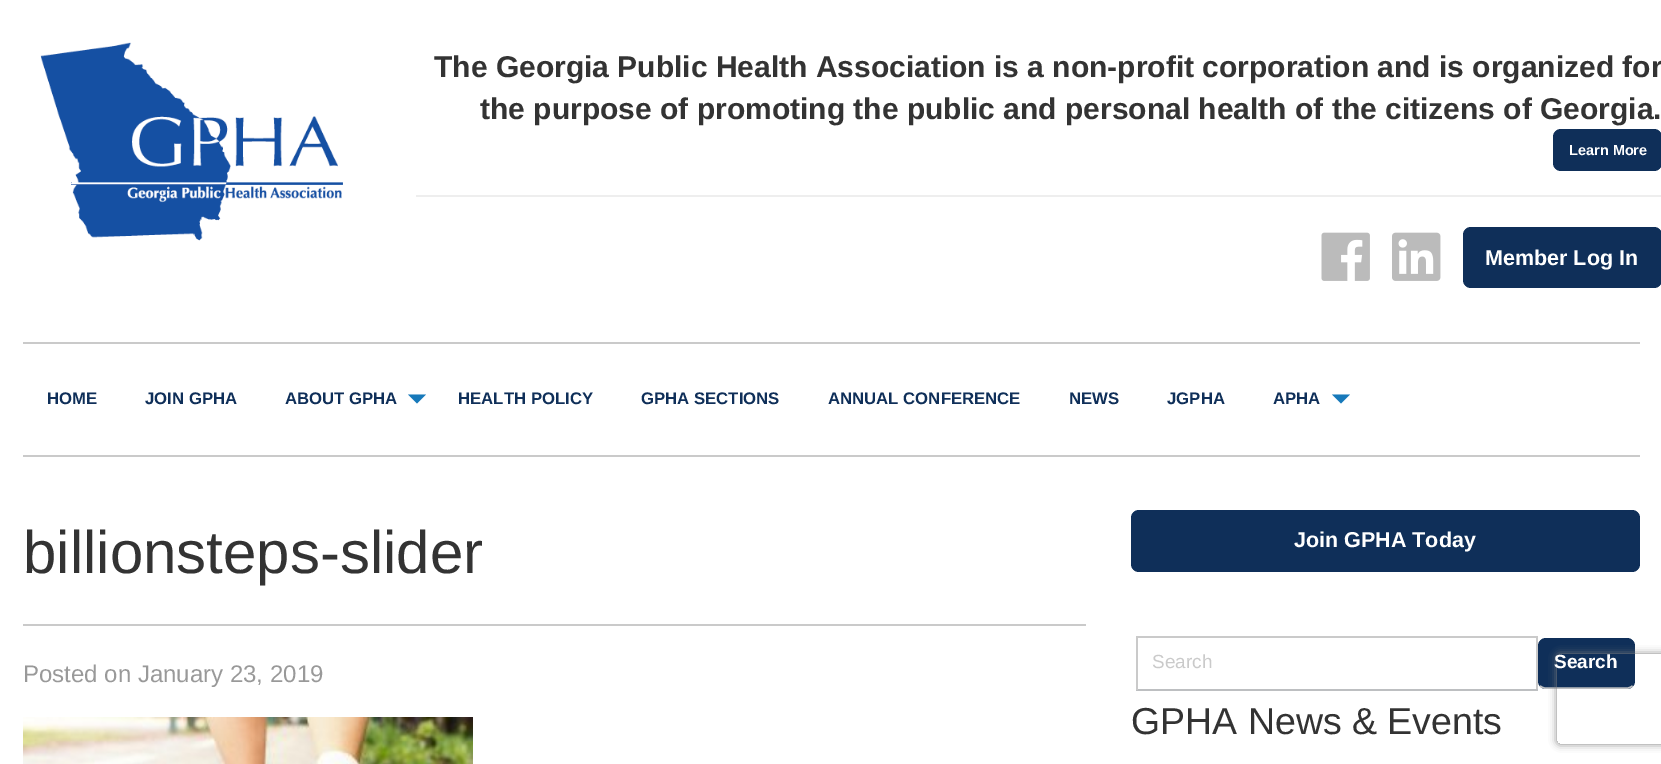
%!PS-Adobe-3.0
%%BoundingBox: 0 0 1661 764
%%LanguageLevel: 3
%%Pages: 1
%%EndComments
%%BeginProlog
/setalpha { dup .setfillconstantalpha .setstrokeconstantalpha } def
/rrect { 5 dict begin { /r /h /w /y /x } { exch def } forall
  x r add y moveto x w add y 2 copy h add r arct x w add y h add x 1 index r arct
  x y h add x y r arct x y 2 copy exch w add exch r arct closepath end } def
/softshadow { 12 dict begin { /a /b /q /h /w /y /x } { exch def } forall gsave /was 0 def
  9 -2 -9 { dup b mul 4 div /e exch def 1 sub .425 mul 2.718 exch exp 1 add a .99 .min exch div /now exch def
    1 1 now sub 1 was sub div sub setalpha /was now def
    w h .min e 2 mul add 0 gt { x e sub y e sub w e 2 mul add h e 2 mul add
      q e add b .6 mul add w h .min 2 div e add .min 0 .max rrect fill } if } for grestore end } def
/drawimage { 5 dict begin { /h /w /y /x /name } { exch def } forall
  gsave x y translate w h scale
  w h 8 [w 0 0 h 0 0] name (r) file false 3 colorimage grestore end } def
%%EndProlog
%%BeginSetup
<< /PageSize [1661 764] /PageUsesTransparency true >> setpagedevice
%%EndSetup
%%Page: 1 1
0 .pushpdf14devicefilter
0 764 translate 1 -1 scale
4 setmiterlimit
1 setgray
0 0 1661 764 rectfill
(images/1.raw) 40 42 303 199 drawimage
0.933 setgray
416 195 1245 2 rectfill
0.059 0.184 0.349 setrgbcolor
1553 129 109 42 8 rrect fill
(images/2.raw) 1321 232 49 49 drawimage
(images/3.raw) 1392 232 49 49 drawimage
1463 227 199 61 8 rrect fill
0.792 setgray
23 342 1617 2 rectfill
0.09 0.475 0.729 setrgbcolor
newpath 408 394.5 moveto 426 394.5 lineto 417 403.5 lineto closepath fill
newpath 1332 394.5 moveto 1350 394.5 lineto 1341 403.5 lineto closepath fill
0.792 setgray
23 455 1617 2 rectfill
23 624 1063 2 rectfill
(images/4.raw) 23 717 450 47 drawimage
0.059 0.184 0.349 setrgbcolor
1131 510 509 62 8 rrect fill
0.792 setgray
1136 636 402 2 rectfill
1536 636 2 54 rectfill
0.741 0.749 0.757 setrgbcolor
1136 689 402 2 rectfill
0.792 setgray
1136 636 2 54 rectfill
0.059 0.184 0.349 setrgbcolor
1538 638 97 51 8 rrect fill
0.741 0.749 0.757 setrgbcolor
1.5 setlinewidth
newpath 1632.5 686 moveto 1631 687 1629.5 688 1627.5 688 curveto 1545 688 lineto 1543 688 1541.5 687 1540 686 curveto stroke
gsave
newpath 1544 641 moveto 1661 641 lineto 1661 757 lineto 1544 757 lineto closepath 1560 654 moveto 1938 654 lineto 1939.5 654 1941 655.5 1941 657 curveto 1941 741 lineto 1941 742.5 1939.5 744 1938 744 curveto 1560 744 lineto 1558.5 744 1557 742.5 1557 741 curveto 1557 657 lineto 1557 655.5 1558.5 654 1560 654 curveto closepath eoclip newpath
0.502 setgray
1557 654 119 90 3 4 1 softshadow
grestore
/LiberationSans-Bold [30 0 0 -30 0 0] selectfont
0.2 setgray
434 77 moveto (The Georgia Public Health Association is a non-profit corporation and is organized for) show
480 119 moveto (the purpose of promoting the public and personal health of the citizens of Georgia.) show
/LiberationSans-Bold [14.5 0 0 -14.5 0 0] selectfont
1 setgray
1569 155 moveto (Learn More) show
/LiberationSans-Bold [21.5 0 0 -21.5 0 0] selectfont
1485 265 moveto (Member Log In) show
/LiberationSans-Bold [16.75 0 0 -16.75 0 0] selectfont
0.059 0.184 0.349 setrgbcolor
47 404 moveto (HOME) show
145 404 moveto (JOIN GPHA) show
285 404 moveto (ABOUT GPHA) show
458 404 moveto (HEALTH POLICY) show
641 404 moveto (GPHA SECTIONS) show
828 404 moveto (ANNUAL CONFERENCE) show
1069 404 moveto (NEWS) show
1167 404 moveto (JGPHA) show
1273 404 moveto (APHA) show
/LiberationSans-Regular [60 0 0 -60 0 0] selectfont
0.2 setgray
23 573 moveto (billionsteps-slider) show
/LiberationSans-Regular [24 0 0 -24 0 0] selectfont
0.6 setgray
23 682 moveto (Posted on January 23, 2019) show
/LiberationSans-Bold [21.5 0 0 -21.5 0 0] selectfont
1 setgray
1294 547 moveto (Join GPHA Today) show
/LiberationSans-Regular [19 0 0 -19 0 0] selectfont
0.792 setgray
1152 668 moveto (Search) show
/LiberationSans-Bold [19 0 0 -19 0 0] selectfont
1 setgray
1554 668 moveto (Search) show
/LiberationSans-Regular [37.5 0 0 -37.5 0 0] selectfont
0.2 setgray
1131 734 moveto (GPHA News & Events) show
.poppdf14devicefilter showpage
%%EOF
